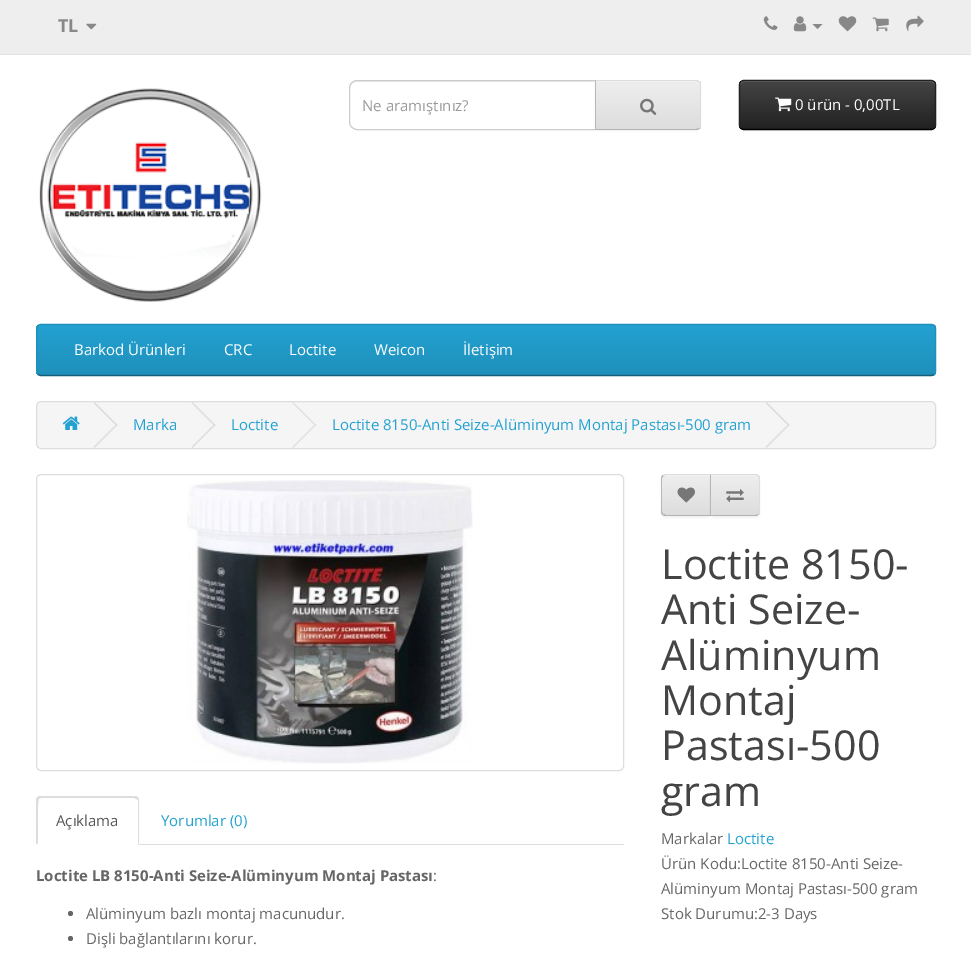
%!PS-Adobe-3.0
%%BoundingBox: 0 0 971 958
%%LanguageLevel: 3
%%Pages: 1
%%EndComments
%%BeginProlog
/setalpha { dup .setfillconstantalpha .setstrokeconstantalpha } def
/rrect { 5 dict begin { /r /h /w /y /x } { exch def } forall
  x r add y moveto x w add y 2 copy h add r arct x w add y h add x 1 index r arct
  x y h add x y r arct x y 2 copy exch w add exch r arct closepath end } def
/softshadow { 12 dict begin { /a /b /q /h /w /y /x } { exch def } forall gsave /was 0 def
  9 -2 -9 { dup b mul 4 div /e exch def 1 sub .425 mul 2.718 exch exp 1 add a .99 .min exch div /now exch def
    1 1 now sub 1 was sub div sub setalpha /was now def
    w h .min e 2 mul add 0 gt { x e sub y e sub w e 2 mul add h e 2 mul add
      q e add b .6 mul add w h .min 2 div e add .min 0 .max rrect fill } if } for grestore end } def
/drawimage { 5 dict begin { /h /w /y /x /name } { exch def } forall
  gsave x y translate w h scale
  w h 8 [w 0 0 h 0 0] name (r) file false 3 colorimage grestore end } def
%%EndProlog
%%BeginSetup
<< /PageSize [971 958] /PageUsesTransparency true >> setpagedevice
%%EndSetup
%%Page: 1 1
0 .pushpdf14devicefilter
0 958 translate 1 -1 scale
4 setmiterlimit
1 setgray
0 0 971 958 rectfill
0.933 setgray
0 0 971 54 rectfill
0.886 setgray
0 54 971 1 rectfill
(images/1.raw) 86 23 11 7 drawimage
(images/2.raw) 763 16 15 14 drawimage
(images/3.raw) 793 16 14 16 drawimage
0.533 setgray
newpath 812.5 24 moveto 822.5 24 lineto 817.5 29 lineto closepath fill
(images/4.raw) 838 16 19 16 drawimage
(images/5.raw) 872 17 17 15 drawimage
(images/6.raw) 906 15 18 17 drawimage
(images/7.raw) 39 88 223 214 drawimage
0.925 setgray
newpath 356 82 moveto 595 82 lineto 595 81 lineto 356 81 lineto 353 81 350 84 350 87 curveto 350 89 lineto 350 85 353 82 356 82 curveto closepath fill
0.8 setgray
newpath 357 80.5 moveto 595.5 80.5 lineto 595.5 129.5 lineto 357 129.5 lineto 353 129.5 349.5 126 349.5 122 curveto 349.5 88 lineto 349.5 84 353 80.5 357 80.5 curveto closepath stroke
0 setgray
595 81 106 50 5 1 0.05 softshadow
gsave
newpath 595 80 moveto 696 80 lineto 699 80 701 82 701 85 curveto 701 125 lineto 701 128 699 130 696 130 curveto 595 130 lineto closepath clip newpath
gsave newpath 596 81 moveto 701 81 lineto 701 129 lineto 596 129 lineto closepath clip newpath
<< /ShadingType 2 /ColorSpace /DeviceRGB /Coords [648 81 648 129] /Extend [true true] /Function << /FunctionType 2 /Domain [0 1] /C0 [0.933 0.933 0.933] /C1 [0.867 0.867 0.867] /N 1 >> >> shfill grestore
grestore
0.945 setgray
newpath 596 82 moveto 696 82 lineto 698 82 700 84 700 86 curveto 700 85 lineto 700 83 698 81 696 81 curveto 596 81 lineto closepath fill
0.867 setgray
newpath 595 80 moveto 596 81 lineto 696 81 lineto 699 82 lineto 700 82 lineto 699 81 698 80 696 80 curveto closepath fill
newpath 700 82 moveto 701 82 701 84 701 85 curveto 701 125 lineto 701 126 701 128 700 128 curveto 699 128 lineto 700 127 700 126 700 125 curveto 700 85 lineto 700 84 700 83 699 82 curveto closepath fill
0.702 setgray
newpath 696 130 moveto 698 130 699 129 700 128 curveto 699 128 lineto 696 129 lineto 596 129 lineto 595 130 lineto closepath fill
0.718 setgray
newpath 595 80 moveto 595 130 lineto 596 129 lineto 596 81 lineto closepath fill
(images/8.raw) 640 98 17 17 drawimage
0 setgray
739 81 197 50 5 1 0.05 softshadow
gsave
739 80 197 50 5 rrect clip newpath
gsave newpath 739 81 moveto 936 81 lineto 936 129 lineto 739 129 lineto closepath clip newpath
<< /ShadingType 2 /ColorSpace /DeviceRGB /Coords [838 81 838 129] /Extend [true true] /Function << /FunctionType 2 /Domain [0 1] /C0 [0.267 0.267 0.267] /C1 [0.133 0.133 0.133] /N 1 >> >> shfill grestore
grestore
0.412 setgray
newpath 744 82 moveto 931 82 lineto 933 82 935 84 935 86 curveto 935 85 lineto 935 83 933 81 931 81 curveto 744 81 lineto 742 81 740 83 740 85 curveto 740 86 lineto 740 84 742 82 744 82 curveto closepath fill
0 setgray
1.2 setlinewidth
newpath 934.5 128 moveto 933.5 129 932.5 129.5 931 129.5 curveto 744 129.5 lineto 742.5 129.5 741.5 129 740.5 128 curveto stroke
0.133 setgray
newpath 740.5 128 moveto 740 127.5 739.5 126 739.5 125 curveto 739.5 85 lineto 739.5 84 740 82.5 740.5 82 curveto 741.5 81 742.5 80.5 744 80.5 curveto 931 80.5 lineto 932.5 80.5 933.5 81 934.5 82 curveto 935 82.5 935.5 84 935.5 85 curveto 935.5 125 lineto 935.5 126 935 127.5 934.5 128 curveto stroke
(images/9.raw) 775 97 17 15 drawimage
gsave
36 324 900 52 5 rrect clip newpath
gsave newpath 36 325 moveto 936 325 lineto 936 375 lineto 36 375 lineto closepath clip newpath
<< /ShadingType 2 /ColorSpace /DeviceRGB /Coords [486 325 486 375] /Extend [true true] /Function << /FunctionType 2 /Domain [0 1] /C0 [0.137 0.631 0.82] /C1 [0.122 0.565 0.733] /N 1 >> >> shfill grestore
grestore
0.078 0.369 0.478 setrgbcolor
newpath 934.5 374.5 moveto 933.5 375 932.5 375.5 931 375.5 curveto 41 375.5 lineto 40 375.5 39 375 38 374.5 curveto stroke
0.122 0.565 0.733 setrgbcolor
newpath 38 374.5 moveto 37.5 373.5 37 372.5 37 371 curveto 37 329 lineto 37 327.5 37.5 326.5 38 325.5 curveto 39 325 40 324.5 41 324.5 curveto 931 324.5 lineto 932.5 324.5 933.5 325 934.5 325.5 curveto 935 326.5 935.5 327.5 935.5 329 curveto 935.5 371 lineto 935.5 372.5 935 373.5 934.5 374.5 curveto stroke
0.961 setgray
36.5 401.5 899 47 4.5 rrect gsave fill grestore
0.867 setgray
1 setlinewidth
stroke
(images/10.raw) 62 416 18 14 drawimage
newpath 93.5 403 moveto 94.5 402 lineto 117.5 425 lineto 116.5 426 lineto closepath fill
newpath 93.5 447 moveto 116.5 424 lineto 117.5 425 lineto 94.5 448 lineto closepath fill
newpath 191.5 403 moveto 192.5 402 lineto 215.5 425 lineto 214.5 426 lineto closepath fill
newpath 191.5 447 moveto 214.5 424 lineto 215.5 425 lineto 192.5 448 lineto closepath fill
newpath 292.5 403 moveto 293 402 lineto 316 425 lineto 315.5 426 lineto closepath fill
newpath 292.5 447 moveto 315.5 424 lineto 316 425 lineto 293 448 lineto closepath fill
newpath 765.5 403 moveto 766.5 402 lineto 789.5 425 lineto 788.5 426 lineto closepath fill
newpath 765.5 447 moveto 788.5 424 lineto 789.5 425 lineto 766.5 448 lineto closepath fill
36.5 474.5 587 296 4.5 rrect stroke
(images/11.raw) 187 480 286 284 drawimage
139 844 485 1 rectfill
newpath 41 798 moveto 39 799 lineto 37 797 lineto 39 796 lineto 136 796 lineto 138 797 lineto 136 799 lineto 134 798 lineto closepath fill
newpath 139 799 moveto 139 845 lineto 138 844 lineto 138 800 lineto 136 799 lineto 138 797 lineto closepath fill
newpath 36 845 moveto 36 799 lineto 37 797 lineto 39 799 lineto 37 801 38 838 38 843 curveto closepath fill
0.4 setgray
newpath 70.5 913.5 2.5 0 360 arc closepath fill
newpath 70.5 938.5 2.5 0 360 arc closepath fill
0 setgray
661 475 50 43 5 1 0.05 softshadow
0.906 setgray
newpath 666 474 moveto 711 474 lineto 711 516 lineto 666 516 lineto 663 516 661 514 661 511 curveto 661 479 lineto 661 476 663 474 666 474 curveto closepath fill
gsave
newpath 666 474 moveto 711 474 lineto 711 516 lineto 666 516 lineto 663 516 661 514 661 511 curveto 661 479 lineto 661 476 663 474 666 474 curveto closepath clip newpath
gsave newpath 661 475 moveto 710 475 lineto 710 515 lineto 661 515 lineto closepath clip newpath
<< /ShadingType 2 /ColorSpace /DeviceRGB /Coords [686 475 686 515] /Extend [true true] /Function << /FunctionType 2 /Domain [0 1] /C0 [0.933 0.933 0.933] /C1 [0.867 0.867 0.867] /N 1 >> >> shfill grestore
grestore
0.945 setgray
newpath 666 476 moveto 710 476 lineto 710 475 lineto 667 475 lineto 666 475 664 476 664 477 curveto closepath fill
0.867 setgray
newpath 666 474 moveto 663 475 lineto 664 476 lineto 666 475 lineto 710 475 lineto 711 474 lineto closepath fill
0.702 setgray
newpath 711 516 moveto 710 515 lineto 666 515 lineto 664 514 lineto 663 515 lineto 663 516 665 516 666 516 curveto closepath fill
0.718 setgray
newpath 661 477.5 moveto 662.5 475 lineto 663.5 476 lineto 662.5 477 662 478 662 479 curveto 662 511 lineto 662 512 662.5 513 663.5 514 curveto 662.5 515 lineto 661 512.5 lineto closepath fill
(images/12.raw) 677 487 18 16 drawimage
0 setgray
710 475 50 43 5 1 0.05 softshadow
gsave
newpath 710 474 moveto 755 474 lineto 758 474 760 476 760 479 curveto 760 511 lineto 760 514 758 516 755 516 curveto 710 516 lineto closepath clip newpath
gsave newpath 711 475 moveto 760 475 lineto 760 515 lineto 711 515 lineto closepath clip newpath
<< /ShadingType 2 /ColorSpace /DeviceRGB /Coords [735 475 735 515] /Extend [true true] /Function << /FunctionType 2 /Domain [0 1] /C0 [0.933 0.933 0.933] /C1 [0.867 0.867 0.867] /N 1 >> >> shfill grestore
grestore
0.945 setgray
newpath 711 476 moveto 755 476 lineto 757 476 759 478 759 480 curveto 759 479 lineto 759 477 757 475 755 475 curveto 711 475 lineto closepath fill
0.867 setgray
newpath 758 475 moveto 758 474 756 474 755 474 curveto 710 474 lineto 711 475 lineto 755 475 lineto 756 475 757 475 758 476 curveto closepath fill
newpath 758.5 475.5 moveto 759.5 476 760 477.5 760 479 curveto 760 511 lineto 760 512.5 759.5 514 758.5 514.5 curveto 757.5 514 lineto 758.5 513 759 512 759 511 curveto 759 479 lineto 759 478 758.5 477 757.5 476 curveto closepath fill
0.702 setgray
newpath 758 515 moveto 758 516 756 516 755 516 curveto 710 516 lineto 711 515 lineto 755 515 lineto 756 515 757 515 758 514 curveto closepath fill
0.718 setgray
newpath 711 475 moveto 711 515 lineto 710 516 lineto 710 474 lineto closepath fill
(images/13.raw) 726 489 18 14 drawimage
/OpenSans-Bold [18 0 0 -18 0 0] selectfont
0.533 setgray
58 32 moveto (TL) show
/OpenSans-Regular [15 0 0 -15 0 0] selectfont
0.6 setgray
362 111 moveto (Ne aramıştınız?) show
1 setgray
795 110 moveto (0 ürün - 0,00TL) show
74 355 moveto (Barkod Ürünleri) show
224 355 moveto (CRC) show
289 355 moveto (Loctite) show
374 355 moveto (Weicon) show
463 355 moveto (İletişim) show
0.137 0.631 0.82 setrgbcolor
133 430 moveto (Marka) show
231 430 moveto (Loctite) show
332 430 moveto (Loctite 8150-Anti Seize-Alüminyum Montaj Pastası-500 gram) show
0.333 setgray
56 826 moveto (Açıklama) show
0.137 0.631 0.82 setrgbcolor
161 826 moveto (Yorumlar \(0\)) show
/OpenSans-Bold [15 0 0 -15 0 0] selectfont
0.4 setgray
36 881 moveto (Loctite LB 8150-Anti Seize-Alüminyum Montaj Pastası) show
/OpenSans-Regular [15 0 0 -15 0 0] selectfont
433 881 moveto (:) show
86 919 moveto (Alüminyum bazlı montaj macunudur.) show
86 944 moveto (Dişli bağlantılarını korur.) show
/OpenSans-Regular [41.25 0 0 -41.25 0 0] selectfont
0.267 setgray
661 579 moveto (Loctite 8150-) show
661 624 moveto (Anti Seize-) show
661 670 moveto (Alüminyum) show
661 715 moveto (Montaj) show
661 760 moveto (Pastası-500) show
661 806 moveto (gram) show
/OpenSans-Regular [15 0 0 -15 0 0] selectfont
0.4 setgray
661 844 moveto (Markalar) show
0.137 0.631 0.82 setrgbcolor
727 844 moveto (Loctite) show
0.4 setgray
661 869 moveto (Ürün Kodu:Loctite 8150-Anti Seize-) show
661 894 moveto (Alüminyum Montaj Pastası-500 gram) show
661 919 moveto (Stok Durumu:2-3 Days) show
.poppdf14devicefilter showpage
%%EOF
